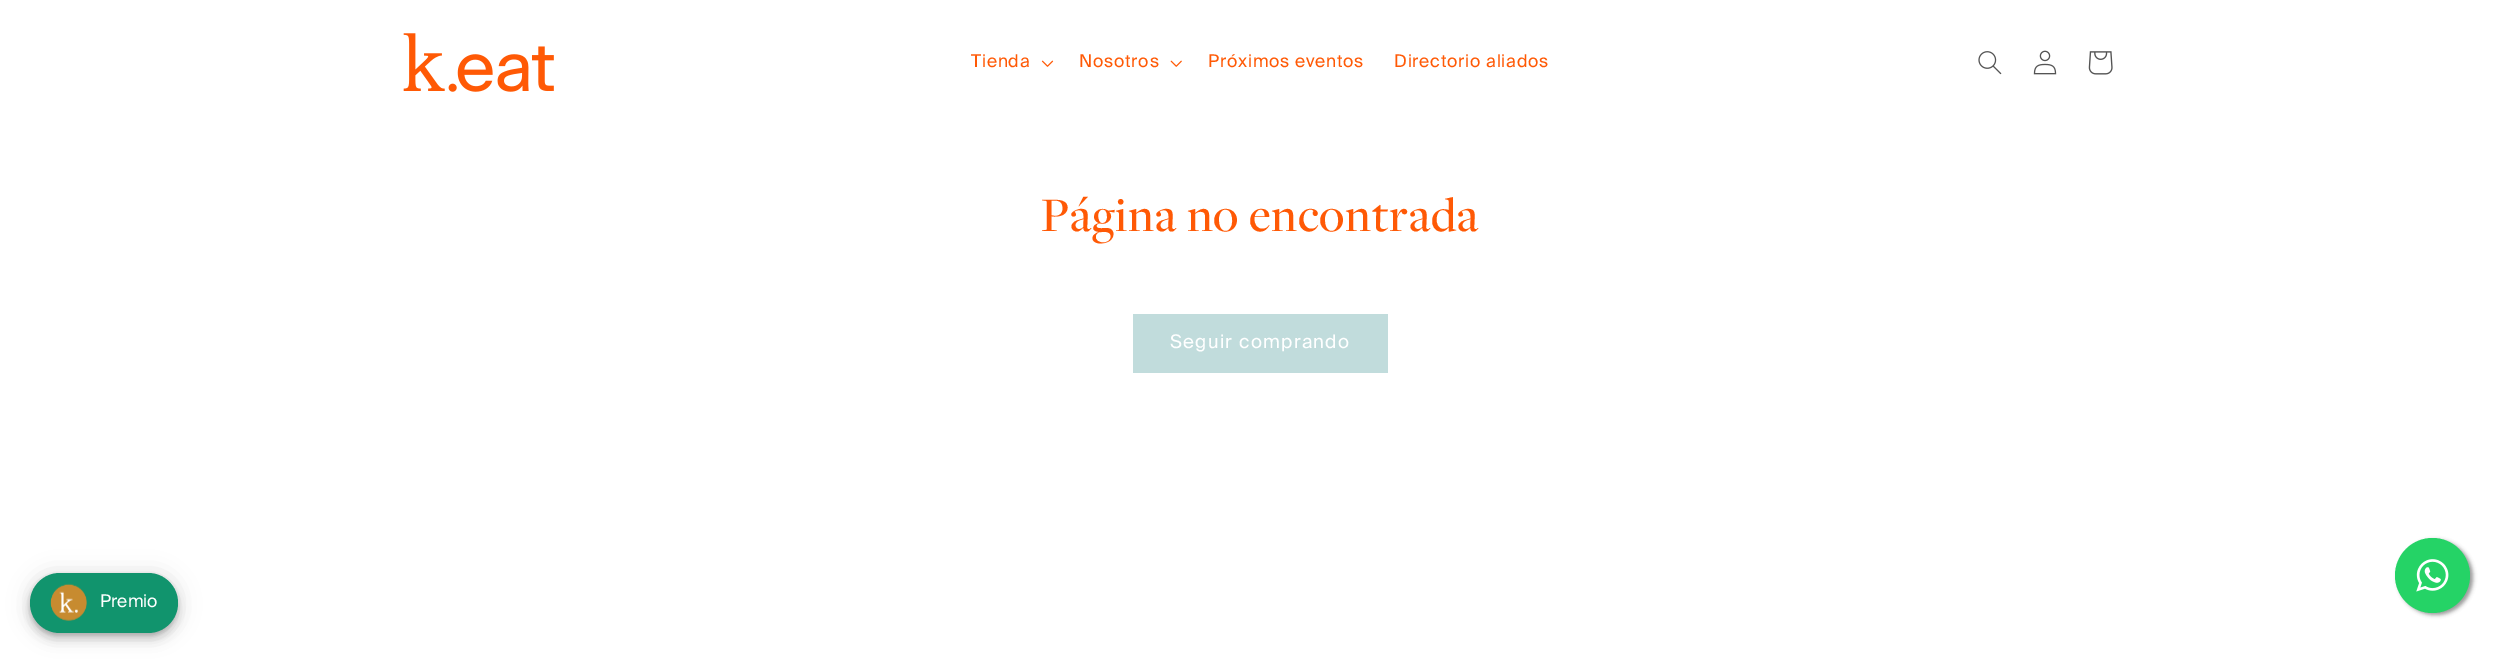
%!PS-Adobe-3.0
%%BoundingBox: 0 0 2520 662
%%LanguageLevel: 3
%%Pages: 1
%%EndComments
%%BeginProlog
/setalpha { dup .setfillconstantalpha .setstrokeconstantalpha } def
/rrect { 5 dict begin { /r /h /w /y /x } { exch def } forall
  x r add y moveto x w add y 2 copy h add r arct x w add y h add x 1 index r arct
  x y h add x y r arct x y 2 copy exch w add exch r arct closepath end } def
/softshadow { 12 dict begin { /a /b /q /h /w /y /x } { exch def } forall gsave /was 0 def
  9 -2 -9 { dup b mul 4 div /e exch def 1 sub .425 mul 2.718 exch exp 1 add a .99 .min exch div /now exch def
    1 1 now sub 1 was sub div sub setalpha /was now def
    w h .min e 2 mul add 0 gt { x e sub y e sub w e 2 mul add h e 2 mul add
      q e add b .6 mul add w h .min 2 div e add .min 0 .max rrect fill } if } for grestore end } def
/drawimage { 5 dict begin { /h /w /y /x /name } { exch def } forall
  gsave x y translate w h scale
  w h 8 [w 0 0 h 0 0] name (r) file false 3 colorimage grestore end } def
%%EndProlog
%%BeginSetup
<< /PageSize [2520 662] /PageUsesTransparency true >> setpagedevice
%%EndSetup
%%Page: 1 1
0 .pushpdf14devicefilter
0 662 translate 1 -1 scale
4 setmiterlimit
1 setgray
0 0 2520 662 rectfill
(images/1.raw) 403 33 151 59 drawimage
(images/2.raw) 1041 60 13 7 drawimage
(images/3.raw) 1170 60 12 7 drawimage
(images/4.raw) 1978 51 24 24 drawimage
(images/5.raw) 2033 50 24 25 drawimage
(images/6.raw) 2088 51 25 24 drawimage
0.757 0.863 0.863 setrgbcolor
1133 314 255 59 rectfill
0 setgray
30 574 148 60 30 11 0.12 softshadow
30 580 148 60 30 6 0.14 softshadow
31 578 145 57 28.5 3 0.2 softshadow
0.067 0.58 0.427 setrgbcolor
30 573 148 60 30 rrect fill
(images/7.raw) 50 583 37 38 drawimage
0.6 setgray
2398 540 75 75 37.5 2 1 softshadow
0.145 0.827 0.4 setrgbcolor
newpath 2432.5 575.5 37.5 0 360 arc closepath fill
(images/8.raw) 2416 559 33 33 drawimage
/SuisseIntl-Regular [17.5 0 0 -17.5 0 0] selectfont
1 0.349 0.02 setrgbcolor
971 67 moveto 0.75 0 (Tienda) ashow
1079 67 moveto 0.75 0 (Nosotros) ashow
1208 67 moveto 0.75 0 (Próximos eventos) ashow
1394 67 moveto 0.75 0 (Directorio aliados) ashow
/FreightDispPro-Medium [50 0 0 -50 0 0] selectfont
1041 231 moveto 0.75 0 (Página no encontrada) ashow
/SuisseIntl-Regular [18.75 0 0 -18.75 0 0] selectfont
1 setgray
1170 348 moveto 1.25 0 (Seguir comprando) ashow
/SuisseIntl-Regular [17.5 0 0 -17.5 0 0] selectfont
100 607 moveto (Premio) show
.poppdf14devicefilter showpage
%%EOF
